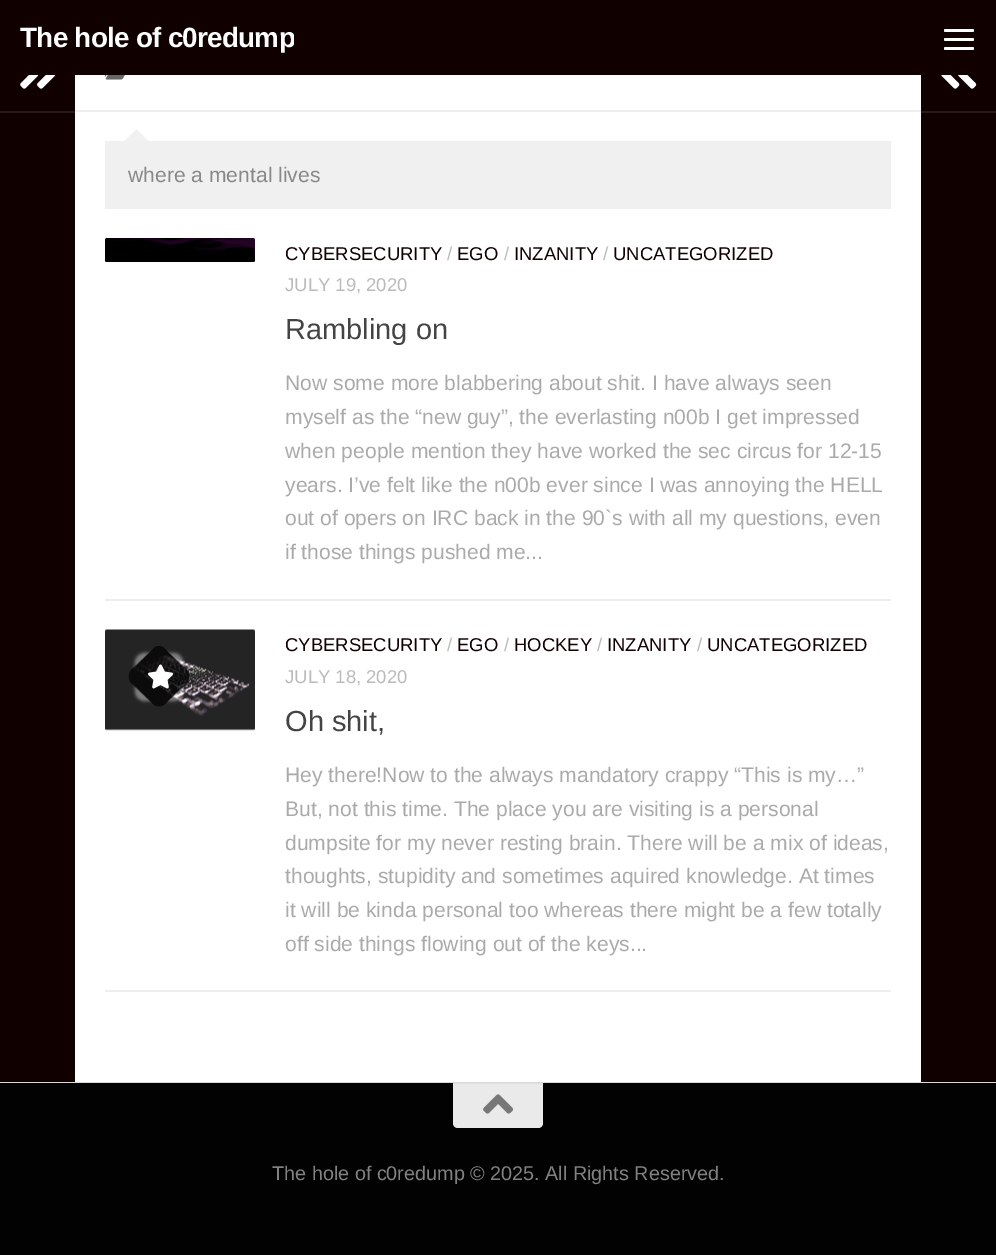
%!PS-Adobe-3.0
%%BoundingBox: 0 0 996 1255
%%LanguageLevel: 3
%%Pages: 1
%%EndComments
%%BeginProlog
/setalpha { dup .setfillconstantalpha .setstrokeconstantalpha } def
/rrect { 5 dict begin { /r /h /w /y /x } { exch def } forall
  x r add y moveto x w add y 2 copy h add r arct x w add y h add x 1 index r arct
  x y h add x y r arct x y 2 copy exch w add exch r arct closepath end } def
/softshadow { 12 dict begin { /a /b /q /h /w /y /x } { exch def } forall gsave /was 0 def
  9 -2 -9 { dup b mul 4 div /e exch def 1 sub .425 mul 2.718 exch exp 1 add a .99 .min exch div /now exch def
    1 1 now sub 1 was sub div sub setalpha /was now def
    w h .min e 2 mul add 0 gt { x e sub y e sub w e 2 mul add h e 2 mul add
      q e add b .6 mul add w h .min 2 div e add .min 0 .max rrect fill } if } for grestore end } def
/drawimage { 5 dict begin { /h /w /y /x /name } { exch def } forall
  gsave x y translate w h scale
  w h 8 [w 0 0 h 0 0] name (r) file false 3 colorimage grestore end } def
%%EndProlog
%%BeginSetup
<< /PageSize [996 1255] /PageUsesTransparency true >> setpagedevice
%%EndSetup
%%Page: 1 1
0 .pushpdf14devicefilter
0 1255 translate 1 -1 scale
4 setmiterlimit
0.918 setgray
0 0 996 1255 rectfill
0 setgray
0 39 996 1044 0 1 0.1 softshadow
0.067 0 0 setrgbcolor
0 0 996 75 rectfill
1 setgray
944 29 30 3 1.5 rrect fill
944 38 30 3 1.5 rrect fill
944 47 30 3 1.5 rrect fill
75 75 846 1007 rectfill
0.067 0 0 setrgbcolor
0 75 75 1007 rectfill
0.161 0.102 0.102 setrgbcolor
0 111 75 2 rectfill
(images/1.raw) 20 75 36 14 drawimage
0.067 0 0 setrgbcolor
921 75 75 1007 rectfill
0.161 0.102 0.102 setrgbcolor
921 111 75 2 rectfill
(images/2.raw) 941 75 36 14 drawimage
0.933 setgray
75 110 846 2 rectfill
(images/3.raw) 105 75 20 5 drawimage
0.941 setgray
105 141 786 68 rectfill
0.945 setgray
newpath 148.5 141 moveto 124.5 141 lineto 136.5 129 lineto closepath fill
0.933 setgray
105 599 786 2 rectfill
(images/4.raw) 105 238 150 24 drawimage
105 990 786 2 rectfill
(images/5.raw) 105 629 150 102 drawimage
gsave
newpath 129 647 moveto 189 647 lineto 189 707 lineto 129 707 lineto closepath 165.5 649 moveto 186.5 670 lineto 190 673.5 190 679.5 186.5 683 curveto 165.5 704 lineto 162 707.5 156 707.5 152.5 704 curveto 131.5 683 lineto 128 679.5 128 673.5 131.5 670 curveto 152.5 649 lineto 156 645.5 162 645.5 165.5 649 curveto closepath eoclip newpath
1 setgray
135 653 48 48 9 1.5 0.4 softshadow
grestore
0.7 setalpha
0 setgray
newpath 165 649 moveto 187 670 lineto 190 674 190 679 187 683 curveto 165 704 lineto 162 707 156 707 153 704 curveto 131 683 lineto 128 679 128 674 131 670 curveto 153 649 lineto 156 645 162 645 165 649 curveto closepath fill
1 setalpha
(images/6.raw) 148 664 25 25 drawimage
0.008 setgray
0 1083 996 172 rectfill
0.918 setgray
newpath 453 1083 moveto 543 1083 lineto 543 1123 lineto 543 1126 541 1128 538 1128 curveto 458 1128 lineto 455 1128 453 1126 453 1123 curveto closepath fill
0.871 setgray
453 1083 90 1 rectfill
(images/7.raw) 483 1094 31 20 drawimage
gsave
20 0 274 75 rectclip
/LiberationSans-Bold [27.9 0 0 -27.9 0 0] selectfont
1 setgray
20 47 moveto -0.75 0 (The hole of c0redump) ashow
grestore
/LiberationSans-Regular [21.1 0 0 -21.1 0 0] selectfont
0.533 setgray
128 182 moveto (where a mental lives) show
/LiberationSans-Regular [18.5 0 0 -18.5 0 0] selectfont
0.067 0 0 setrgbcolor
285 260 moveto (CYBERSECURITY) show
0.733 setgray
447 260 moveto (/) show
0.067 0 0 setrgbcolor
457 260 moveto (EGO) show
0.733 setgray
504 260 moveto (/) show
0.067 0 0 setrgbcolor
514 260 moveto (INZANITY) show
0.733 setgray
603 260 moveto (/) show
0.067 0 0 setrgbcolor
613 260 moveto (UNCATEGORIZED) show
0.733 setgray
285 291 moveto (JULY 19, 2020) show
/LiberationSans-Regular [29 0 0 -29 0 0] selectfont
0.267 setgray
285 339 moveto (Rambling on) show
/LiberationSans-Regular [21.1 0 0 -21.1 0 0] selectfont
0.667 setgray
285 390 moveto (Now some more blabbering about shit. I have always seen) show
285 424 moveto (myself as the “new guy”, the everlasting n00b I get impressed) show
285 458 moveto (when people mention they have worked the sec circus for 12-15) show
285 492 moveto (years. I’ve felt like the n00b ever since I was annoying the HELL) show
285 525 moveto (out of opers on IRC back in the 90`s with all my questions, even) show
285 559 moveto (if those things pushed me...) show
/LiberationSans-Regular [18.5 0 0 -18.5 0 0] selectfont
0.067 0 0 setrgbcolor
285 651 moveto (CYBERSECURITY) show
0.733 setgray
447 651 moveto (/) show
0.067 0 0 setrgbcolor
457 651 moveto (EGO) show
0.733 setgray
504 651 moveto (/) show
0.067 0 0 setrgbcolor
514 651 moveto (HOCKEY) show
0.733 setgray
597 651 moveto (/) show
0.067 0 0 setrgbcolor
607 651 moveto (INZANITY) show
0.733 setgray
697 651 moveto (/) show
0.067 0 0 setrgbcolor
707 651 moveto (UNCATEGORIZED) show
0.733 setgray
285 683 moveto (JULY 18, 2020) show
/LiberationSans-Regular [29 0 0 -29 0 0] selectfont
0.267 setgray
285 731 moveto (Oh shit,) show
/LiberationSans-Regular [21.1 0 0 -21.1 0 0] selectfont
0.667 setgray
285 782 moveto (Hey there!Now to the always mandatory crappy “This is my…”) show
285 816 moveto (But, not this time. The place you are visiting is a personal) show
285 850 moveto (dumpsite for my never resting brain. There will be a mix of ideas,) show
285 883 moveto (thoughts, stupidity and sometimes aquired knowledge. At times) show
285 917 moveto (it will be kinda personal too whereas there might be a few totally) show
285 951 moveto (off side things flowing out of the keys...) show
/LiberationSans-Regular [19.8 0 0 -19.8 0 0] selectfont
0.506 setgray
272 1180 moveto (The hole of c0redump © 2025. All Rights Reserved.) show
.poppdf14devicefilter showpage
%%EOF
